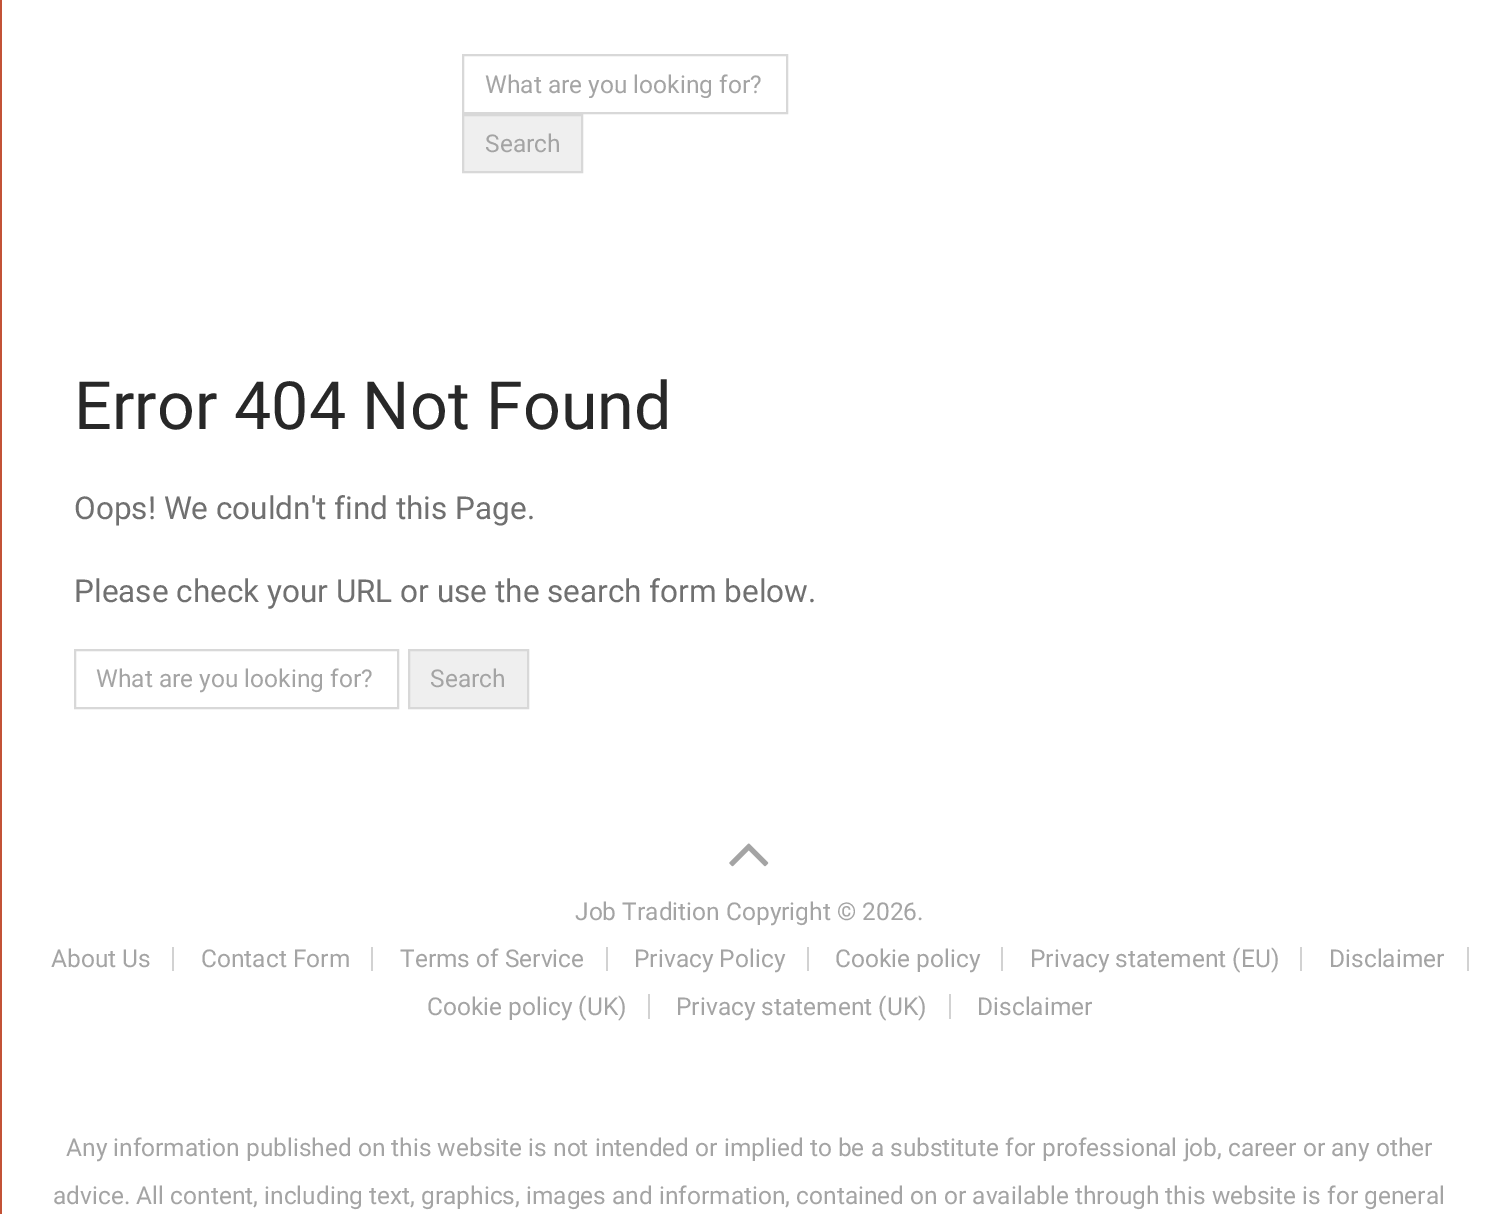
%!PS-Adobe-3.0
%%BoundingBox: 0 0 1498 1214
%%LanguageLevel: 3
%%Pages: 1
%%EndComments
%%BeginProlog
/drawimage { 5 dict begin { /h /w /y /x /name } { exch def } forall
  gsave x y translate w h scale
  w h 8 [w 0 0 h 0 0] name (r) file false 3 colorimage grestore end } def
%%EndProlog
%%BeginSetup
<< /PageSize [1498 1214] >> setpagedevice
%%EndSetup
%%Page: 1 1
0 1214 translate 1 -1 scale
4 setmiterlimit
1 setgray
0 0 1498 1214 rectfill
0.765 0.322 0.212 setrgbcolor
0 0 2 1214 rectfill
0.847 setgray
2 setlinewidth
463 55 324 58 rectstroke
0.937 setgray
newpath 463 115 moveto 582 115 lineto 582 172 lineto 463 172 lineto closepath gsave fill grestore
0.847 setgray
stroke
75 650 323 58 rectstroke
0.937 setgray
newpath 409 650 moveto 528 650 lineto 528 708 lineto 409 708 lineto closepath gsave fill grestore
0.847 setgray
stroke
(images/1.raw) 729 843 40 24 drawimage
0.824 setgray
172 947 2 24 rectfill
371 947 2 24 rectfill
606 947 2 24 rectfill
807 947 2 24 rectfill
1001 947 2 24 rectfill
1300 947 2 24 rectfill
1467 947 2 24 rectfill
648 994 2 25 rectfill
949 994 2 25 rectfill
gsave
485 70 280 28 rectclip
/Roboto-Regular [24.5 0 0 -24.5 0 0] selectfont
0.643 setgray
485 93 moveto (What are you looking for?) show
grestore
/Roboto-Regular [24.5 0 0 -24.5 0 0] selectfont
0.643 setgray
485 152 moveto (Search) show
/Roboto-Regular [66.5 0 0 -66.5 0 0] selectfont
0.157 setgray
74 429 moveto (Error 404 Not Found) show
/Roboto-Regular [31.5 0 0 -31.5 0 0] selectfont
0.439 setgray
74 519 moveto (Oops! We couldn't find this Page.) show
74 602 moveto (Please check your URL or use the search form below.) show
/Roboto-Regular [24.5 0 0 -24.5 0 0] selectfont
0.643 setgray
96 687 moveto (What are you looking for?) show
430 687 moveto (Search) show
575 920 moveto (Job Tradition Copyright © 2026.) show
51 967 moveto (About Us) show
201 967 moveto (Contact Form) show
400 967 moveto (Terms of Service) show
634 967 moveto (Privacy Policy) show
835 967 moveto (Cookie policy) show
1030 967 moveto (Privacy statement \(EU\)) show
1329 967 moveto (Disclaimer) show
427 1015 moveto (Cookie policy \(UK\)) show
676 1015 moveto (Privacy statement \(UK\)) show
977 1015 moveto (Disclaimer) show
66 1156 moveto (Any information published on this website is not intended or implied to be a substitute for professional job, career or any other) show
53 1204 moveto (advice. All content, including text, graphics, images and information, contained on or available through this website is for general) show
showpage
%%EOF
